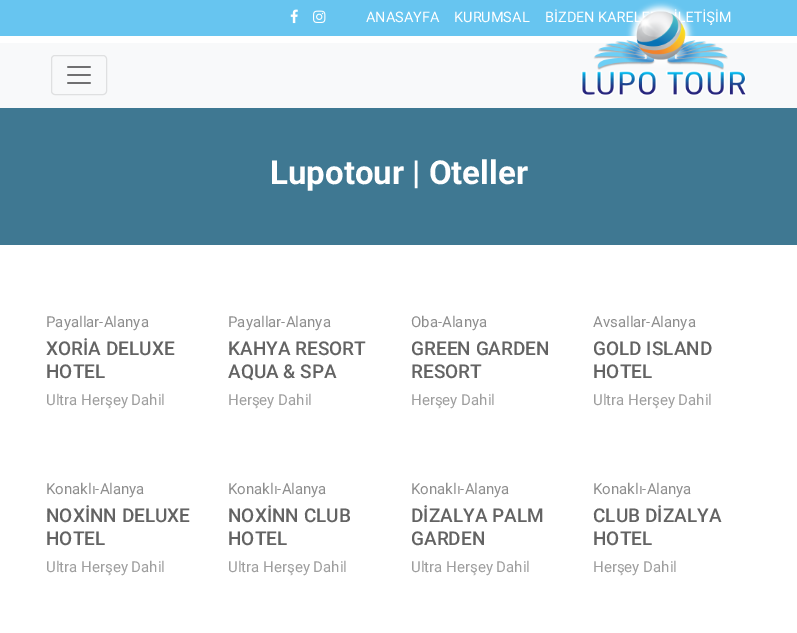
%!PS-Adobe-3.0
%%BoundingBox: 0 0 797 633
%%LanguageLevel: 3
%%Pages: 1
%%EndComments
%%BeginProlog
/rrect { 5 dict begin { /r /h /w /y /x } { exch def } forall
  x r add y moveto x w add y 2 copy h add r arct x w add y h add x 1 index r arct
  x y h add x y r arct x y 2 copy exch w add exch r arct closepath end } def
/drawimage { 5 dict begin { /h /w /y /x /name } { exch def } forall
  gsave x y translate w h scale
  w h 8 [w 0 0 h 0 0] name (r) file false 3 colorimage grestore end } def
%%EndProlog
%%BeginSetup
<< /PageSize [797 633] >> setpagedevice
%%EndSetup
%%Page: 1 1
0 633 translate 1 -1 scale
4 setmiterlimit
1 setgray
0 0 797 633 rectfill
0.973 0.976 0.98 setrgbcolor
0 43 797 65 rectfill
0.875 0.878 0.882 setrgbcolor
51.5 55.5 55 39 3.5 rrect stroke
(images/1.raw) 67 66 24 18 drawimage
0.404 0.773 0.941 setrgbcolor
0 0 797 36 rectfill
(images/3.raw) 290 9 8 15 drawimage
(images/4.raw) 313 10 13 13 drawimage
0.247 0.471 0.573 setrgbcolor
0 108 797 137 rectfill
/Roboto-Regular [14.5 0 0 -14.5 0 0] selectfont
1 setgray
366 22 moveto (ANASAYFA) show
454 22 moveto (KURUMSAL) show
545 22 moveto (BİZDEN KAREL) show
685 22 moveto (ETİŞİM) show
(images/2.raw) 581 1 166 95 drawimage
/Roboto-Bold [33 0 0 -33 0 0] selectfont
270 184 moveto (Lupotour | Oteller) show
/Roboto-Regular [15 0 0 -15 0 0] selectfont
0.557 setgray
46 327 moveto (Payallar-Alanya) show
/Roboto-Medium [19 0 0 -19 0 0] selectfont
0.388 setgray
46 355 moveto (XORİA DELUXE) show
46 378 moveto (HOTEL) show
/Roboto-Regular [15 0 0 -15 0 0] selectfont
0.62 setgray
46 405 moveto (Ultra Herşey Dahil) show
0.557 setgray
228 327 moveto (Payallar-Alanya) show
/Roboto-Medium [19 0 0 -19 0 0] selectfont
0.388 setgray
228 355 moveto (KAHYA RESORT) show
228 378 moveto (AQUA & SPA) show
/Roboto-Regular [15 0 0 -15 0 0] selectfont
0.62 setgray
228 405 moveto (Herşey Dahil) show
0.557 setgray
411 327 moveto (Oba-Alanya) show
/Roboto-Medium [19 0 0 -19 0 0] selectfont
0.388 setgray
411 355 moveto (GREEN GARDEN) show
411 378 moveto (RESORT) show
/Roboto-Regular [15 0 0 -15 0 0] selectfont
0.62 setgray
411 405 moveto (Herşey Dahil) show
0.557 setgray
593 327 moveto (Avsallar-Alanya) show
/Roboto-Medium [19 0 0 -19 0 0] selectfont
0.388 setgray
593 355 moveto (GOLD ISLAND) show
593 378 moveto (HOTEL) show
/Roboto-Regular [15 0 0 -15 0 0] selectfont
0.62 setgray
593 405 moveto (Ultra Herşey Dahil) show
0.557 setgray
46 494 moveto (Konaklı-Alanya) show
/Roboto-Medium [19 0 0 -19 0 0] selectfont
0.388 setgray
46 522 moveto (NOXİNN DELUXE) show
46 545 moveto (HOTEL) show
/Roboto-Regular [15 0 0 -15 0 0] selectfont
0.62 setgray
46 572 moveto (Ultra Herşey Dahil) show
0.557 setgray
228 494 moveto (Konaklı-Alanya) show
/Roboto-Medium [19 0 0 -19 0 0] selectfont
0.388 setgray
228 522 moveto (NOXİNN CLUB) show
228 545 moveto (HOTEL) show
/Roboto-Regular [15 0 0 -15 0 0] selectfont
0.62 setgray
228 572 moveto (Ultra Herşey Dahil) show
0.557 setgray
411 494 moveto (Konaklı-Alanya) show
/Roboto-Medium [19 0 0 -19 0 0] selectfont
0.388 setgray
411 522 moveto (DİZALYA PALM) show
411 545 moveto (GARDEN) show
/Roboto-Regular [15 0 0 -15 0 0] selectfont
0.62 setgray
411 572 moveto (Ultra Herşey Dahil) show
0.557 setgray
593 494 moveto (Konaklı-Alanya) show
/Roboto-Medium [19 0 0 -19 0 0] selectfont
0.388 setgray
593 522 moveto (CLUB DİZALYA) show
593 545 moveto (HOTEL) show
/Roboto-Regular [15 0 0 -15 0 0] selectfont
0.62 setgray
593 572 moveto (Herşey Dahil) show
showpage
%%EOF
